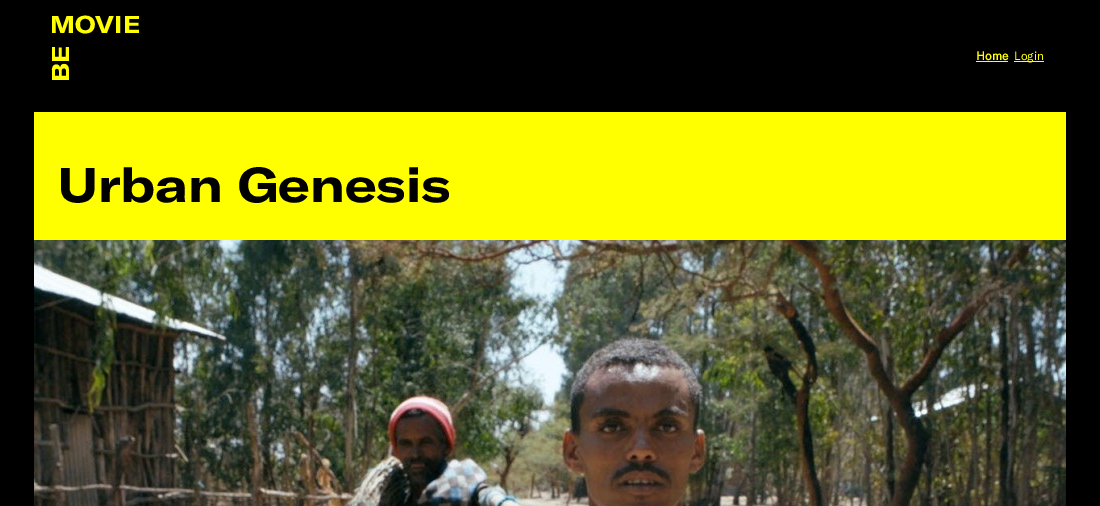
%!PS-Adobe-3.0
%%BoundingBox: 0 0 1100 506
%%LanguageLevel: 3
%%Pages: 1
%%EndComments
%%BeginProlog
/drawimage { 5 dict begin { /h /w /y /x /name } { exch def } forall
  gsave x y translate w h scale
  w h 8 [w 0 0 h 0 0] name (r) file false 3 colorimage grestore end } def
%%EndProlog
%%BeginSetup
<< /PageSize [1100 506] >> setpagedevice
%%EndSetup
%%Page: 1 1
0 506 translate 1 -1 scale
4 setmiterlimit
0 setgray
0 0 1100 506 rectfill
1 1 0 setrgbcolor
976 61 32 1 rectfill
1014 61 30 1 rectfill
34 112 1032 128 rectfill
(images/1.raw) 34 240 1032 266 drawimage
/GTAmerica-Bold [24 0 0 -24 0 0] selectfont
50 33 moveto (MOVIE) show
gsave 69 82 translate -90 rotate 0 0 moveto (BE) show grestore
/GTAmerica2-Bold [12 0 0 -12 0 0] selectfont
976 60 moveto (Home) show
/GTAmerica-Regular [12 0 0 -12 0 0] selectfont
1014 60 moveto (Login) show
/GTAmerica-Bold [48 0 0 -48 0 0] selectfont
0 setgray
58 202 moveto (Urban Genesis) show
showpage
%%EOF
